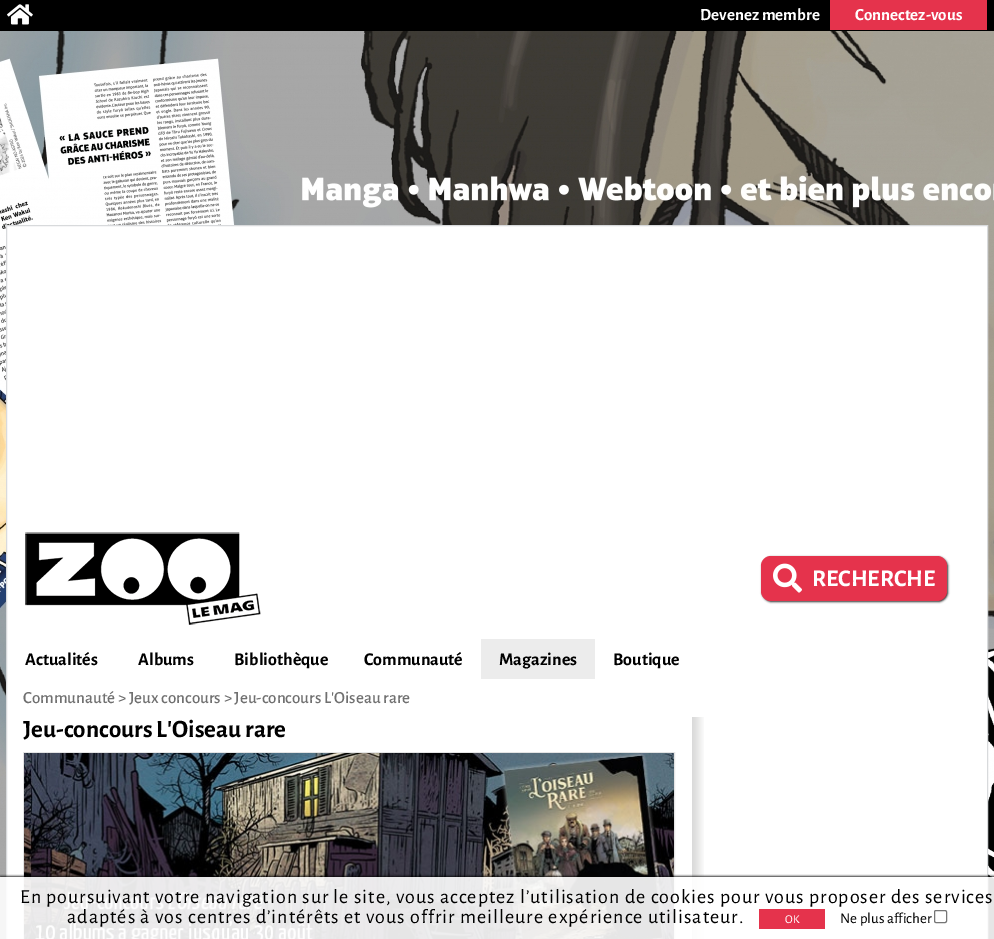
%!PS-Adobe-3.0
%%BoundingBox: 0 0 994 939
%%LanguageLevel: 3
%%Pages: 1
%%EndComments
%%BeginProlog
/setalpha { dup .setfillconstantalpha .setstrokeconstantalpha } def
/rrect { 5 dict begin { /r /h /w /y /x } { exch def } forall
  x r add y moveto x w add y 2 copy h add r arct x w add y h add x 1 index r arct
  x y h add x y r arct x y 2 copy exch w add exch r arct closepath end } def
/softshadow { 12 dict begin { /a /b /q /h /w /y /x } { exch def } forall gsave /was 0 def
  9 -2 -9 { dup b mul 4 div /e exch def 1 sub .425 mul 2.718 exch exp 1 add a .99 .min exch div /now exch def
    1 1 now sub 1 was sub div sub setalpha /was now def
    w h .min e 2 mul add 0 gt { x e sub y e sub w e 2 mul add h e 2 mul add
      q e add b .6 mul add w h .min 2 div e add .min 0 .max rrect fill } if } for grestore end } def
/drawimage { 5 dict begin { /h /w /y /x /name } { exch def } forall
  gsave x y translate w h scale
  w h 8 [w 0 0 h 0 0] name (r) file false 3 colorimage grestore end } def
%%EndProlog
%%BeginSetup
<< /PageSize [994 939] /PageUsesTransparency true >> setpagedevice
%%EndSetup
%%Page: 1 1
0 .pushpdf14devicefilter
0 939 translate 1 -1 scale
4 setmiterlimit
1 setgray
0 0 994 939 rectfill
(images/1.raw) 0 31 994 908 drawimage
0 setgray
0 0 994 31 rectfill
(images/2.raw) 7 4 26 21 drawimage
0.898 0.2 0.298 setrgbcolor
830 0 157 30 rectfill
1 setgray
newpath 6.5 225.5 moveto 987.5 225.5 lineto 987.5 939.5 lineto 6.5 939.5 lineto closepath gsave fill grestore
0.847 0.855 0.863 setrgbcolor
stroke
(images/3.raw) 25 532 236 93 drawimage
0 setgray
762 557 186 45 10 1 0.8 softshadow
0.898 0.2 0.298 setrgbcolor
761 556 186 45 10 rrect fill
(images/4.raw) 773 563 29 30 drawimage
0.925 setgray
481 639 114 40 rectfill
(images/5.raw) 692 717 12 222 drawimage
0.894 setgray
23.5 752.5 651 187 rectstroke
(images/6.raw) 24 753 650 186 drawimage
gsave
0 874 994 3 rectclip
0 setgray
0 876 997 62 0 1 0.8 softshadow
grestore
0.9 setalpha
1 setgray
0 877 994 62 rectfill
1 setalpha
0.898 0.2 0.298 setrgbcolor
759 909 66 20 rectfill
0.463 setgray
934.5 910.5 12 12 1.5 rrect stroke
/AlegreyaSans-Bold [17 0 0 -17 0 0] selectfont
1 setgray
700 20 moveto (Devenez membre) show
855 20 moveto (Connectez-vous) show
/AlegreyaSans-Bold [24 0 0 -24 0 0] selectfont
812 586 moveto (RECHERCHE) show
/AlegreyaSans-Bold [18 0 0 -18 0 0] selectfont
0 setgray
25 665 moveto (Actualités) show
138 665 moveto (Albums) show
234 665 moveto (Bibliothèque) show
364 665 moveto (Communauté) show
499 665 moveto (Magazines) show
613 665 moveto (Boutique) show
/AlegreyaSans-Medium [17 0 0 -17 0 0] selectfont
0.439 setgray
23 703 moveto (Communauté > Jeux concours > Jeu-concours L'Oiseau rare) show
/AlegreyaSans-Bold [25 0 0 -25 0 0] selectfont
0 setgray
23 737 moveto (Jeu-concours L'Oiseau rare) show
/AlegreyaSans-Regular [20 0 0 -20 0 0] selectfont
20 903 moveto 1 0 (En poursuivant votre navigation sur le site, vous acceptez l’utilisation de cookies pour vous proposer des services) ashow
67 923 moveto 1 0 (adaptés à vos centres d’intérêts et vous offrir meilleure expérience utilisateur.) ashow
/AlegreyaSans-Regular [12 0 0 -12 0 0] selectfont
1 setgray
785 923 moveto (OK) show
/AlegreyaSans-Regular [15 0 0 -15 0 0] selectfont
0 setgray
840 923 moveto (Ne plus afficher) show
.poppdf14devicefilter showpage
%%EOF
